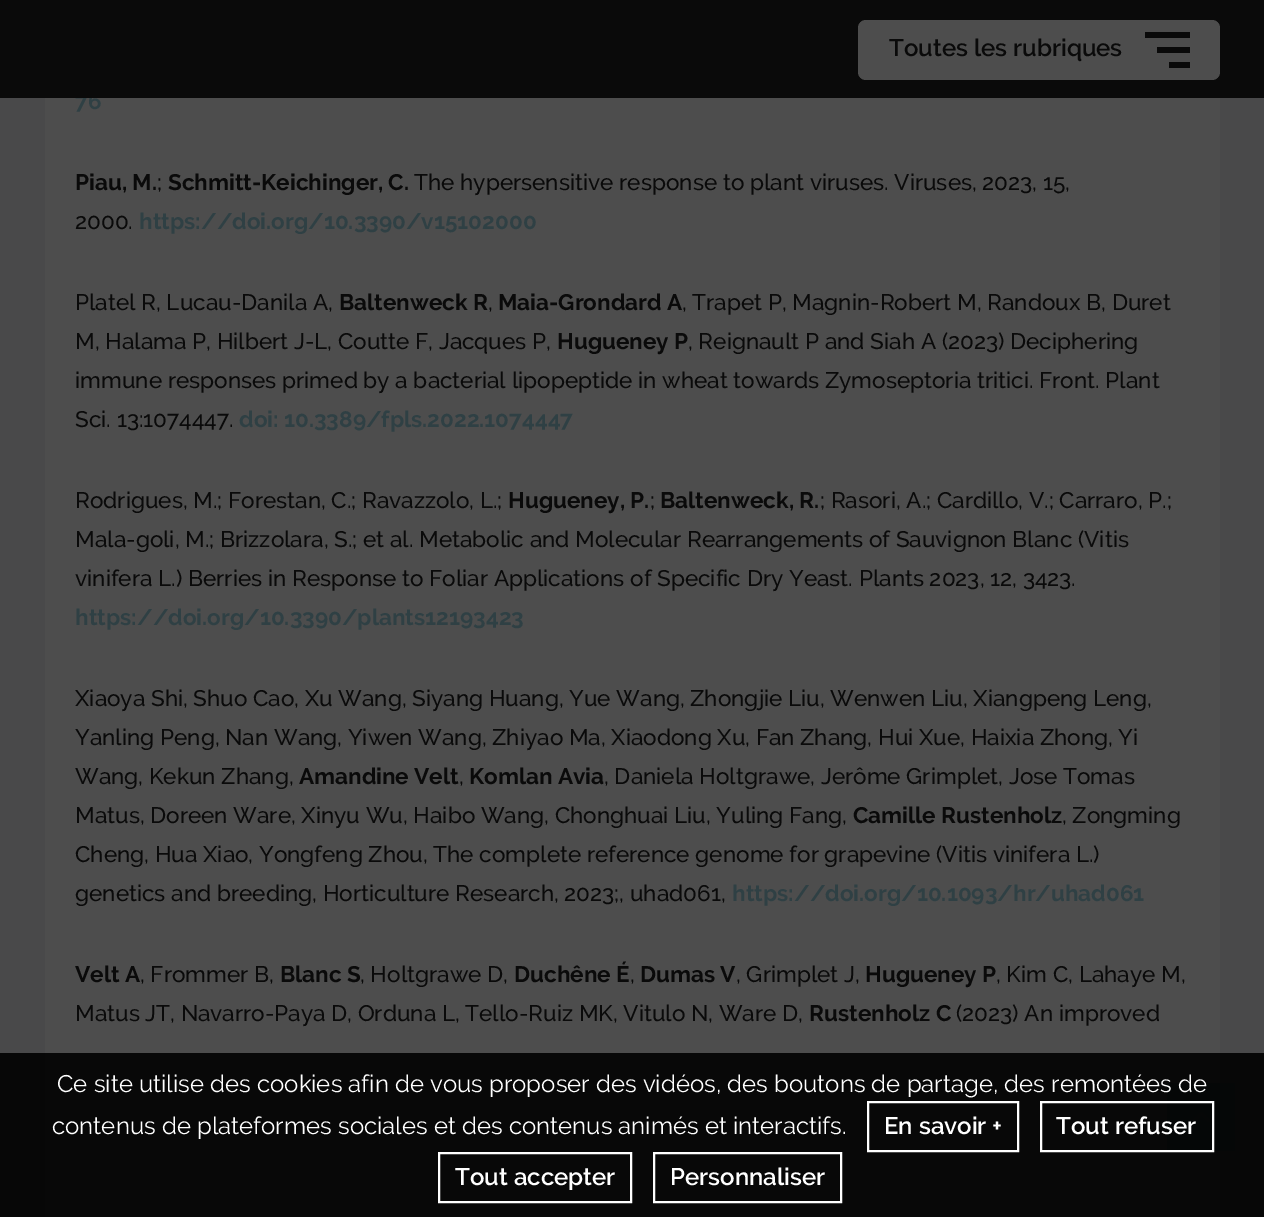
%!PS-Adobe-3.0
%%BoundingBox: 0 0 1264 1217
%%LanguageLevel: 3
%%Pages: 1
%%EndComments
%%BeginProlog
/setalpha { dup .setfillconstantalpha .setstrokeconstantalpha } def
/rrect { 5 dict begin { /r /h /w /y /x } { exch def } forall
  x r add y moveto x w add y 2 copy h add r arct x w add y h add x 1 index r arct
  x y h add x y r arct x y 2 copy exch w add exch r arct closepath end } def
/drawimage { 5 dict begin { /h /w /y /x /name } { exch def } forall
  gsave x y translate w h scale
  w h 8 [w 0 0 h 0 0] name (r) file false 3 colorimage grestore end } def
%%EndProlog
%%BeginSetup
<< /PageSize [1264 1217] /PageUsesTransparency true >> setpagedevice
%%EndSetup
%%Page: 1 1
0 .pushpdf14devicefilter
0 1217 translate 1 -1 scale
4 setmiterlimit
0.286 0.286 0.29 setrgbcolor
0 0 1264 1217 rectfill
0.216 0.263 0.275 setrgbcolor
1220 1083 15 68 rectfill
0.302 setgray
45 98 1175 1119 rectfill
0.22 0.267 0.278 setrgbcolor
1167 1083 53 68 rectfill
(images/1.raw) 1193 1112 17 10 drawimage
0.9 setalpha
0 setgray
0 1053 1264 164 rectfill
1 setalpha
1 setgray
2 setlinewidth
868 1102 150 49 rectstroke
1041 1102 172 49 rectstroke
439 1153 192 49 rectstroke
654 1153 187 49 rectstroke
/Raleway-Bold [22.5 0 0 -22.5 0 0] selectfont
0.184 0.251 0.267 setrgbcolor
75 109 moveto (76) show
0.039 setgray
0 0 1264 98 rectfill
0.302 setgray
858 20 362 60 8 rrect fill
0.039 setgray
1169 62 21 6 rectfill
1157 47 33 6 rectfill
1145 32 45 6 rectfill
/Raleway-SemiBold [24 0 0 -24 0 0] selectfont
889 56 moveto (Toutes les rubriques) show
/Raleway-Bold [22.5 0 0 -22.5 0 0] selectfont
75 190 moveto (Piau, M.) show
/Raleway-Medium [22.5 0 0 -22.5 0 0] selectfont
157 190 moveto (;) show
/Raleway-Bold [22.5 0 0 -22.5 0 0] selectfont
168 190 moveto (Schmitt-Keichinger, C.) show
/Raleway-Medium [22.5 0 0 -22.5 0 0] selectfont
414 190 moveto (The hypersensitive response to plant viruses. Viruses, 2023, 15,) show
75 229 moveto (2000.) show
/Raleway-Bold [22.5 0 0 -22.5 0 0] selectfont
0.184 0.251 0.267 setrgbcolor
139 229 moveto (https://doi.org/10.3390/v15102000) show
/Raleway-Medium [22.5 0 0 -22.5 0 0] selectfont
0.039 setgray
75 310 moveto (Platel R, Lucau-Danila A,) show
/Raleway-Bold [22.5 0 0 -22.5 0 0] selectfont
339 310 moveto (Baltenweck R) show
/Raleway-Medium [22.5 0 0 -22.5 0 0] selectfont
488 310 moveto (,) show
/Raleway-Bold [22.5 0 0 -22.5 0 0] selectfont
498 310 moveto (Maia-Grondard A) show
/Raleway-Medium [22.5 0 0 -22.5 0 0] selectfont
682 310 moveto (, Trapet P, Magnin-Robert M, Randoux B, Duret) show
75 349 moveto (M, Halama P, Hilbert J-L, Coutte F, Jacques P,) show
/Raleway-Bold [22.5 0 0 -22.5 0 0] selectfont
557 349 moveto (Hugueney P) show
/Raleway-Medium [22.5 0 0 -22.5 0 0] selectfont
688 349 moveto (, Reignault P and Siah A \(2023\) Deciphering) show
75 388 moveto (immune responses primed by a bacterial lipopeptide in wheat towards Zymoseptoria tritici. Front. Plant) show
75 427 moveto (Sci. 13:1074447.) show
/Raleway-Bold [22.5 0 0 -22.5 0 0] selectfont
0.184 0.251 0.267 setrgbcolor
239 427 moveto (doi: 10.3389/fpls.2022.1074447) show
/Raleway-Medium [22.5 0 0 -22.5 0 0] selectfont
0.039 setgray
75 508 moveto (Rodrigues, M.; Forestan, C.; Ravazzolo, L.;) show
/Raleway-Bold [22.5 0 0 -22.5 0 0] selectfont
508 508 moveto (Hugueney, P.) show
/Raleway-Medium [22.5 0 0 -22.5 0 0] selectfont
650 508 moveto (;) show
/Raleway-Bold [22.5 0 0 -22.5 0 0] selectfont
660 508 moveto (Baltenweck, R.) show
/Raleway-Medium [22.5 0 0 -22.5 0 0] selectfont
820 508 moveto (; Rasori, A.; Cardillo, V.; Carraro, P.;) show
75 547 moveto (Mala-goli, M.; Brizzolara, S.; et al. Metabolic and Molecular Rearrangements of Sauvignon Blanc \(Vitis) show
75 586 moveto (vinifera L.\) Berries in Response to Foliar Applications of Specific Dry Yeast. Plants 2023, 12, 3423.) show
/Raleway-Bold [22.5 0 0 -22.5 0 0] selectfont
0.184 0.251 0.267 setrgbcolor
75 625 moveto (https://doi.org/10.3390/plants12193423) show
/Raleway-Medium [22.5 0 0 -22.5 0 0] selectfont
0.039 setgray
75 706 moveto (Xiaoya Shi, Shuo Cao, Xu Wang, Siyang Huang, Yue Wang, Zhongjie Liu, Wenwen Liu, Xiangpeng Leng,) show
75 745 moveto (Yanling Peng, Nan Wang, Yiwen Wang, Zhiyao Ma, Xiaodong Xu, Fan Zhang, Hui Xue, Haixia Zhong, Yi) show
75 784 moveto (Wang, Kekun Zhang,) show
/Raleway-Bold [22.5 0 0 -22.5 0 0] selectfont
299 784 moveto (Amandine Velt) show
/Raleway-Medium [22.5 0 0 -22.5 0 0] selectfont
459 784 moveto (,) show
/Raleway-Bold [22.5 0 0 -22.5 0 0] selectfont
469 784 moveto (Komlan Avia) show
/Raleway-Medium [22.5 0 0 -22.5 0 0] selectfont
604 784 moveto (, Daniela Holtgrawe, Jerôme Grimplet, Jose Tomas) show
75 823 moveto (Matus, Doreen Ware, Xinyu Wu, Haibo Wang, Chonghuai Liu, Yuling Fang,) show
/Raleway-Bold [22.5 0 0 -22.5 0 0] selectfont
853 823 moveto (Camille Rustenholz) show
/Raleway-Medium [22.5 0 0 -22.5 0 0] selectfont
1062 823 moveto (, Zongming) show
75 862 moveto (Cheng, Hua Xiao, Yongfeng Zhou, The complete reference genome for grapevine \(Vitis vinifera L.\)) show
75 901 moveto (genetics and breeding, Horticulture Research, 2023;, uhad061,) show
/Raleway-Bold [22.5 0 0 -22.5 0 0] selectfont
0.184 0.251 0.267 setrgbcolor
732 901 moveto (https://doi.org/10.1093/hr/uhad061) show
0.039 setgray
75 982 moveto (Velt A) show
/Raleway-Medium [22.5 0 0 -22.5 0 0] selectfont
140 982 moveto (, Frommer B,) show
/Raleway-Bold [22.5 0 0 -22.5 0 0] selectfont
280 982 moveto (Blanc S) show
/Raleway-Medium [22.5 0 0 -22.5 0 0] selectfont
360 982 moveto (, Holtgrawe D,) show
/Raleway-Bold [22.5 0 0 -22.5 0 0] selectfont
514 982 moveto (Duchêne É) show
/Raleway-Medium [22.5 0 0 -22.5 0 0] selectfont
630 982 moveto (,) show
/Raleway-Bold [22.5 0 0 -22.5 0 0] selectfont
640 982 moveto (Dumas V) show
/Raleway-Medium [22.5 0 0 -22.5 0 0] selectfont
736 982 moveto (, Grimplet J,) show
/Raleway-Bold [22.5 0 0 -22.5 0 0] selectfont
865 982 moveto (Hugueney P) show
/Raleway-Medium [22.5 0 0 -22.5 0 0] selectfont
996 982 moveto (, Kim C, Lahaye M,) show
75 1021 moveto (Matus JT, Navarro-Paya D, Orduna L, Tello-Ruiz MK, Vitulo N, Ware D,) show
/Raleway-Bold [22.5 0 0 -22.5 0 0] selectfont
809 1021 moveto (Rustenholz C) show
/Raleway-Medium [22.5 0 0 -22.5 0 0] selectfont
956 1021 moveto (\(2023\) An improved) show
/Raleway-Regular [24 0 0 -24 0 0] selectfont
1 setgray
57 1092 moveto (Ce site utilise des cookies afin de vous proposer des vidéos, des boutons de partage, des remontées de) show
52 1134 moveto (contenus de plateformes sociales et des contenus animés et interactifs.) show
/Raleway-SemiBold [24 0 0 -24 0 0] selectfont
884 1134 moveto (En savoir +) show
1056 1134 moveto (Tout refuser) show
455 1185 moveto (Tout accepter) show
670 1185 moveto (Personnaliser) show
.poppdf14devicefilter showpage
%%EOF
